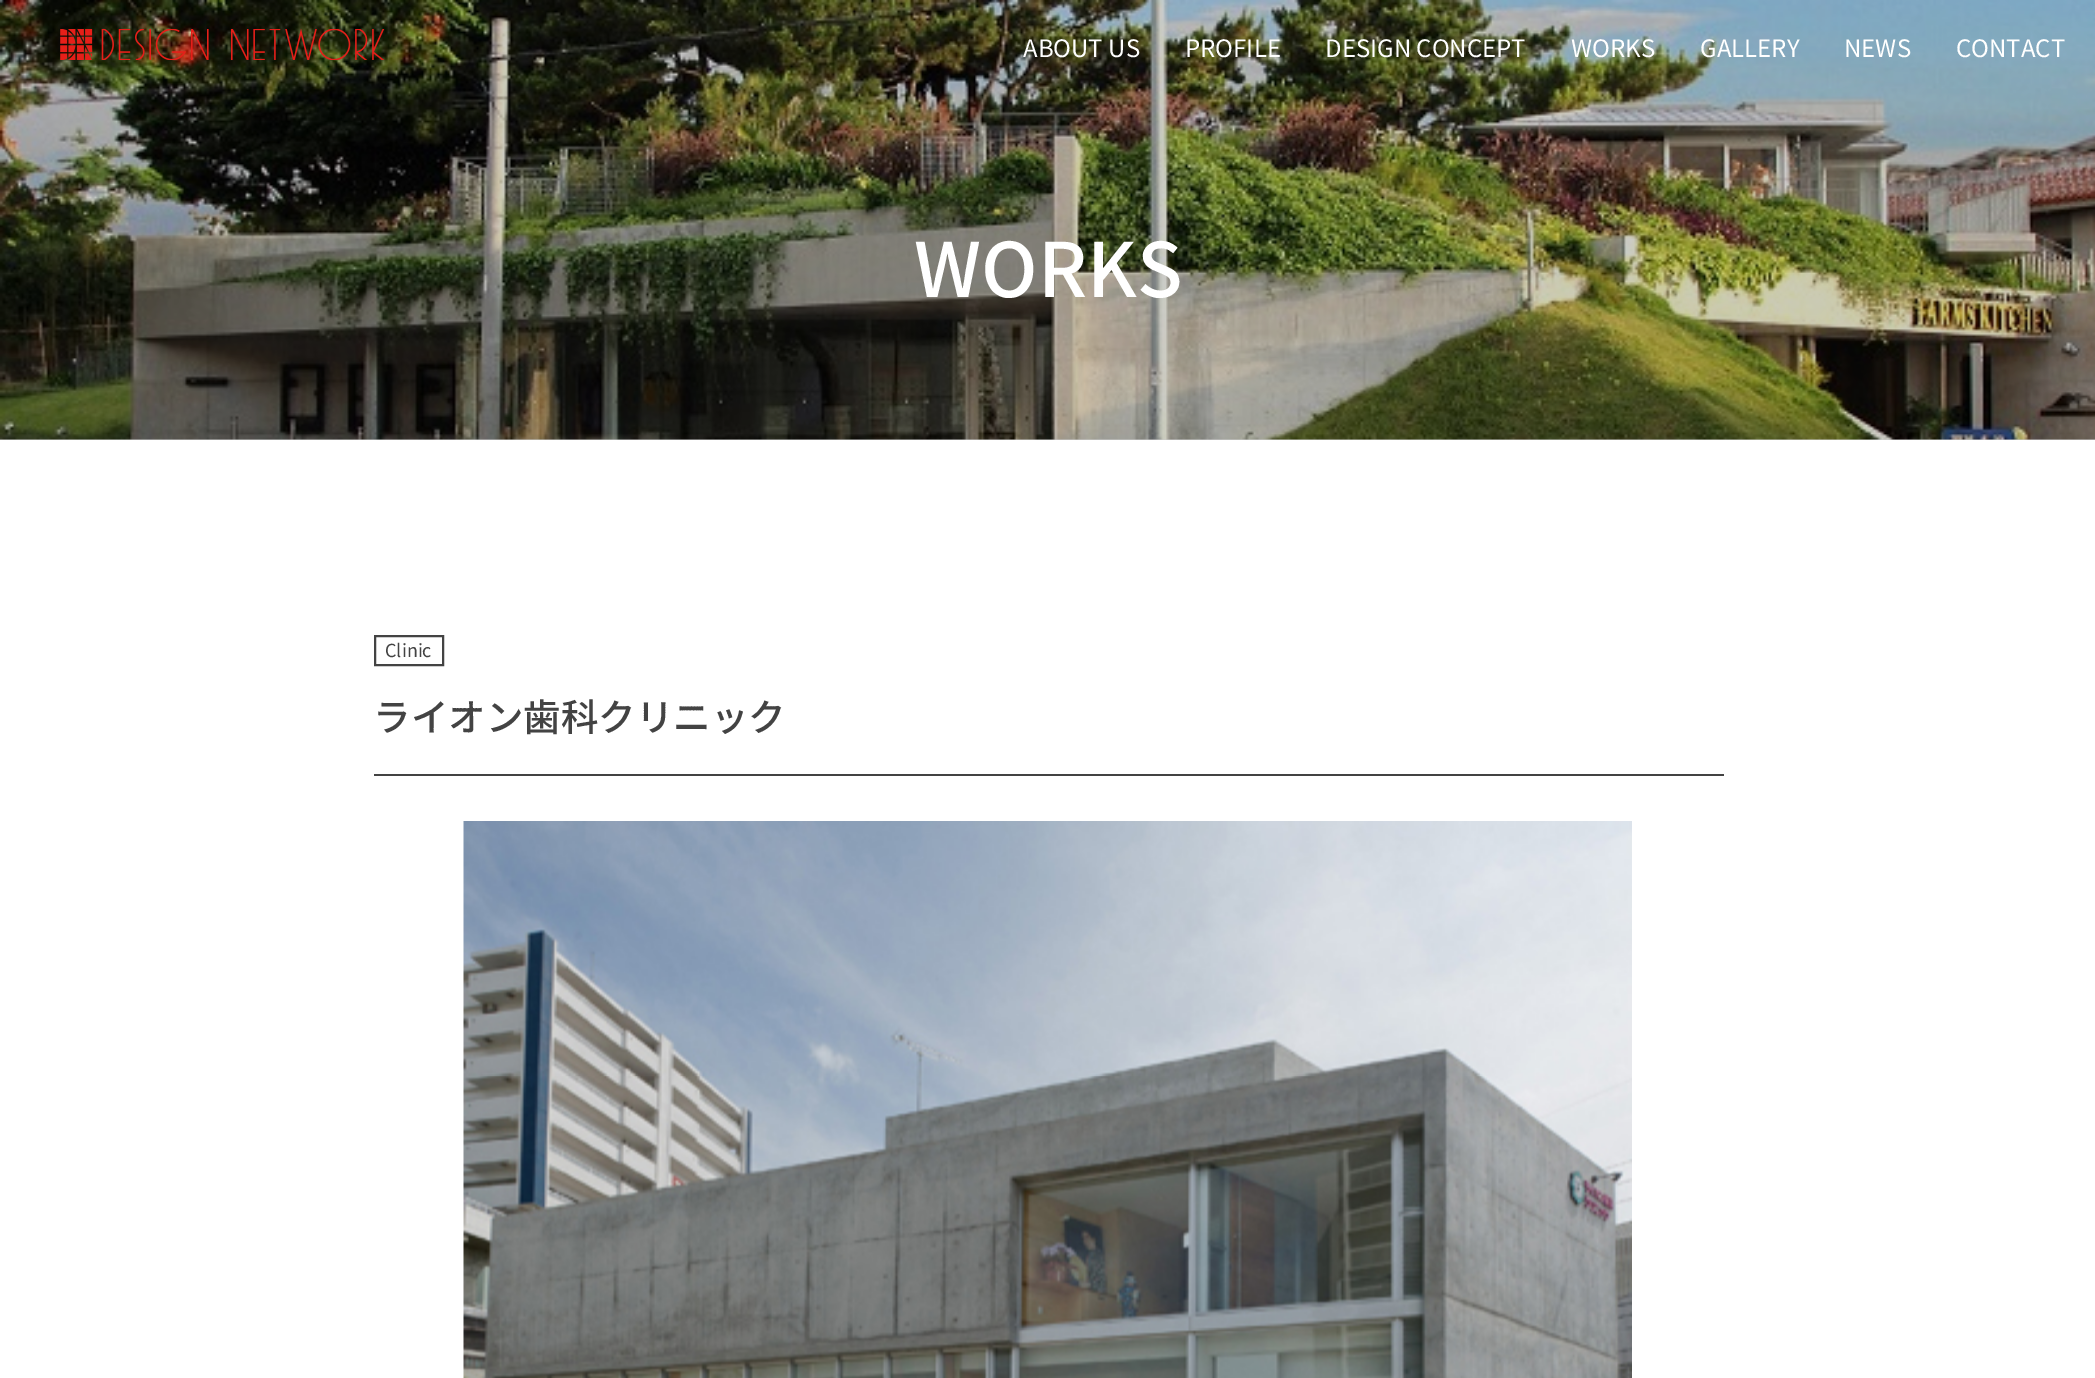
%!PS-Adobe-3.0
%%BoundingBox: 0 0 2095 1378
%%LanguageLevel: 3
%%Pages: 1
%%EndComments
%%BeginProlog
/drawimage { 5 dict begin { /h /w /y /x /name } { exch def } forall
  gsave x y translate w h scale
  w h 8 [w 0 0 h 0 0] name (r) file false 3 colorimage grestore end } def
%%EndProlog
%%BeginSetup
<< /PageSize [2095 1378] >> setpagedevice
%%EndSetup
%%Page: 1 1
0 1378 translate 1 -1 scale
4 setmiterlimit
1 setgray
0 0 2095 1378 rectfill
0.8 setgray
0 439 2095 1 rectfill
(images/2.raw) 0 0 2095 440 drawimage
(images/1.raw) 60 29 325 31 drawimage
0.263 setgray
2 setlinewidth
375 636 68 29 rectstroke
374 774 1350 2 rectfill
(images/3.raw) 463 821 1169 557 drawimage
/NotoSansJP-Regular [24 0 0 -24 0 0] selectfont
1 setgray
1023 57 moveto (ABOUT US) show
1185 57 moveto (PROFILE) show
1325 57 moveto (DESIGN CONCEPT) show
1571 57 moveto (WORKS) show
1700 57 moveto (GALLERY) show
1844 57 moveto (NEWS) show
1956 57 moveto (CONTACT) show
/NotoSansJP-Medium [75 0 0 -75 0 0] selectfont
914 297 moveto (WORKS) show
/NotoSansJP-Regular [18 0 0 -18 0 0] selectfont
0.263 setgray
385 657 moveto (Clinic) show
/NotoSansJP-Medium [37.5 0 0 -37.5 0 0] selectfont
373 731 moveto (ライオン歯科クリニック) show
showpage
%%EOF
